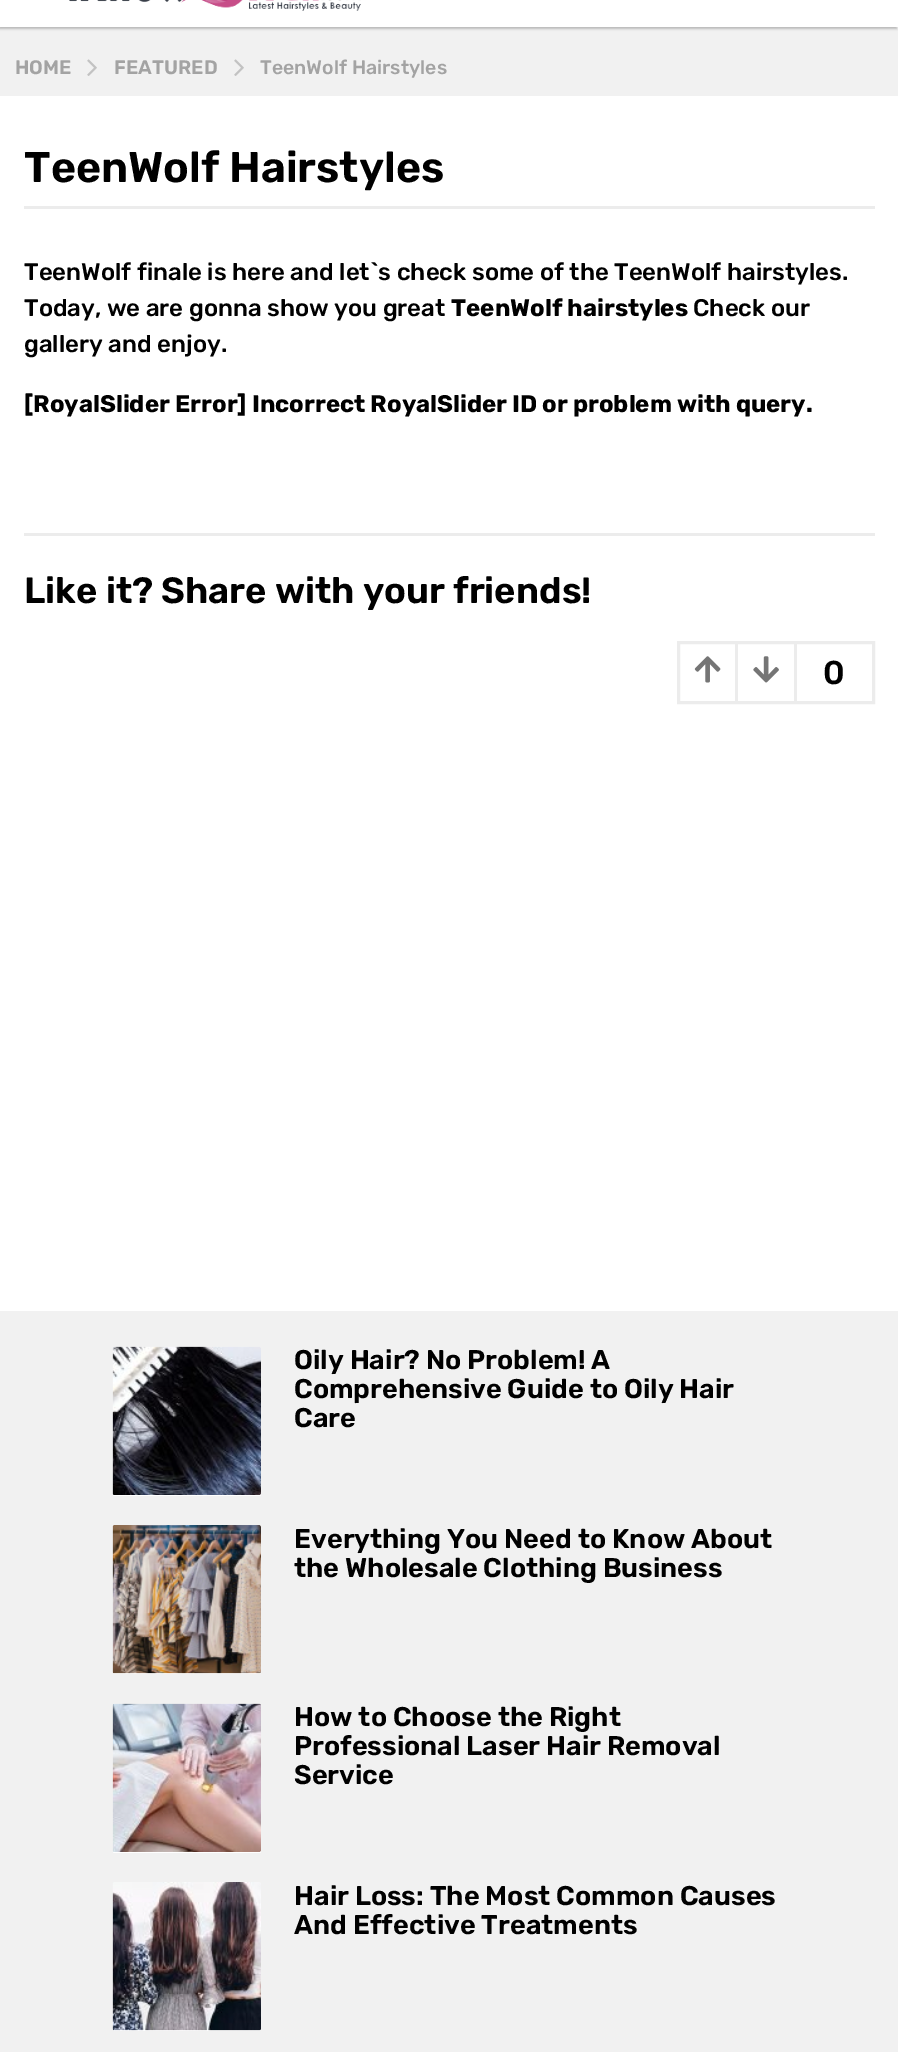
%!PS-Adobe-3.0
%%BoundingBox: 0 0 898 2052
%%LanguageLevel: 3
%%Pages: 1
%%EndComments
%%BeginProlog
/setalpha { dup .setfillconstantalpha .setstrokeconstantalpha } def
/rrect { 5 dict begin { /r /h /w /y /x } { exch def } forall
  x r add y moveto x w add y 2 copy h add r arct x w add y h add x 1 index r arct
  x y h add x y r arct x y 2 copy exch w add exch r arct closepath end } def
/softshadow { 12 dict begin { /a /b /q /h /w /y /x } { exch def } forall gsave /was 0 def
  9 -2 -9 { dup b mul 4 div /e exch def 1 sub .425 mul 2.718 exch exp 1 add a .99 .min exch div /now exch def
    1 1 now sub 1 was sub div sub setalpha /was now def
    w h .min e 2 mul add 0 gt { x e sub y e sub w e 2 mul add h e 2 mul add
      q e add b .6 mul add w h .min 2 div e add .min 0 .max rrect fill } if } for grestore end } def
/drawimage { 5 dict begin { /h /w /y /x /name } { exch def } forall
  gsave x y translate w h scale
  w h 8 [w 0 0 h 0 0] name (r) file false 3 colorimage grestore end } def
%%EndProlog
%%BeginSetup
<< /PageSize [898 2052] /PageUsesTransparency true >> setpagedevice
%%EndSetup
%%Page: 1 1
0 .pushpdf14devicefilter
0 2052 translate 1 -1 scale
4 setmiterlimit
0.945 setgray
0 0 898 2052 rectfill
0.165 setgray
-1 -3 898 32 0 1 0.27 softshadow
1 setgray
0 0 898 27 rectfill
(images/1.raw) 69 0 292 11 drawimage
(images/2.raw) 87 59 10 17 drawimage
(images/2.raw) 234 59 10 17 drawimage
0 96 898 1215 rectfill
0.925 setgray
24 206 851 3 rectfill
24 533 851 3 rectfill
3 setlinewidth
678.5 642.5 195 60 rectstroke
735 644 3 57 rectfill
(images/3.raw) 694 656 27 27 drawimage
794 644 3 57 rectfill
(images/4.raw) 753 656 26 27 drawimage
1 setgray
113 1347 148 149 1.5 rrect fill
(images/5.raw) 112 1346 149 149 drawimage
113 1526 148 148 1.5 rrect fill
(images/6.raw) 112 1525 149 149 drawimage
113 1704 148 149 1.5 rrect fill
(images/7.raw) 112 1703 149 149 drawimage
113 1883 148 148 1.5 rrect fill
(images/8.raw) 112 1882 149 149 drawimage
/Rubik-SemiBold [19.5 0 0 -19.5 0 0] selectfont
0.639 setgray
15 74 moveto (HOME) show
114 74 moveto (FEATURED) show
/Rubik-Medium [19.5 0 0 -19.5 0 0] selectfont
260 74 moveto (TeenWolf Hairstyles) show
/Rubik-SemiBold [43 0 0 -43 0 0] selectfont
0 setgray
24 182 moveto (TeenWolf Hairstyles) show
/Rubik-Medium [24 0 0 -24 0 0] selectfont
24 280 moveto (TeenWolf finale is here and let`s check some of the TeenWolf hairstyles.) show
24 316 moveto (Today, we are gonna show you great) show
/Rubik-Bold [24 0 0 -24 0 0] selectfont
451 316 moveto (TeenWolf hairstyles) show
/Rubik-Medium [24 0 0 -24 0 0] selectfont
693 316 moveto (Check our) show
24 352 moveto (gallery and enjoy.) show
/Rubik-Bold [24 0 0 -24 0 0] selectfont
24 412 moveto ([RoyalSlider Error] Incorrect RoyalSlider ID or problem with query.) show
/Rubik-SemiBold [36.5 0 0 -36.5 0 0] selectfont
24 603 moveto (Like it? Share with your friends!) show
/Rubik-Medium [33 0 0 -33 0 0] selectfont
823 684 moveto (0) show
/Rubik-SemiBold [27 0 0 -27 0 0] selectfont
294 1369 moveto (Oily Hair? No Problem! A) show
294 1398 moveto (Comprehensive Guide to Oily Hair) show
294 1427 moveto (Care) show
294 1548 moveto (Everything You Need to Know About) show
294 1577 moveto (the Wholesale Clothing Business) show
294 1726 moveto (How to Choose the Right) show
294 1755 moveto (Professional Laser Hair Removal) show
294 1784 moveto (Service) show
294 1905 moveto (Hair Loss: The Most Common Causes) show
294 1934 moveto (And Effective Treatments) show
.poppdf14devicefilter showpage
%%EOF
